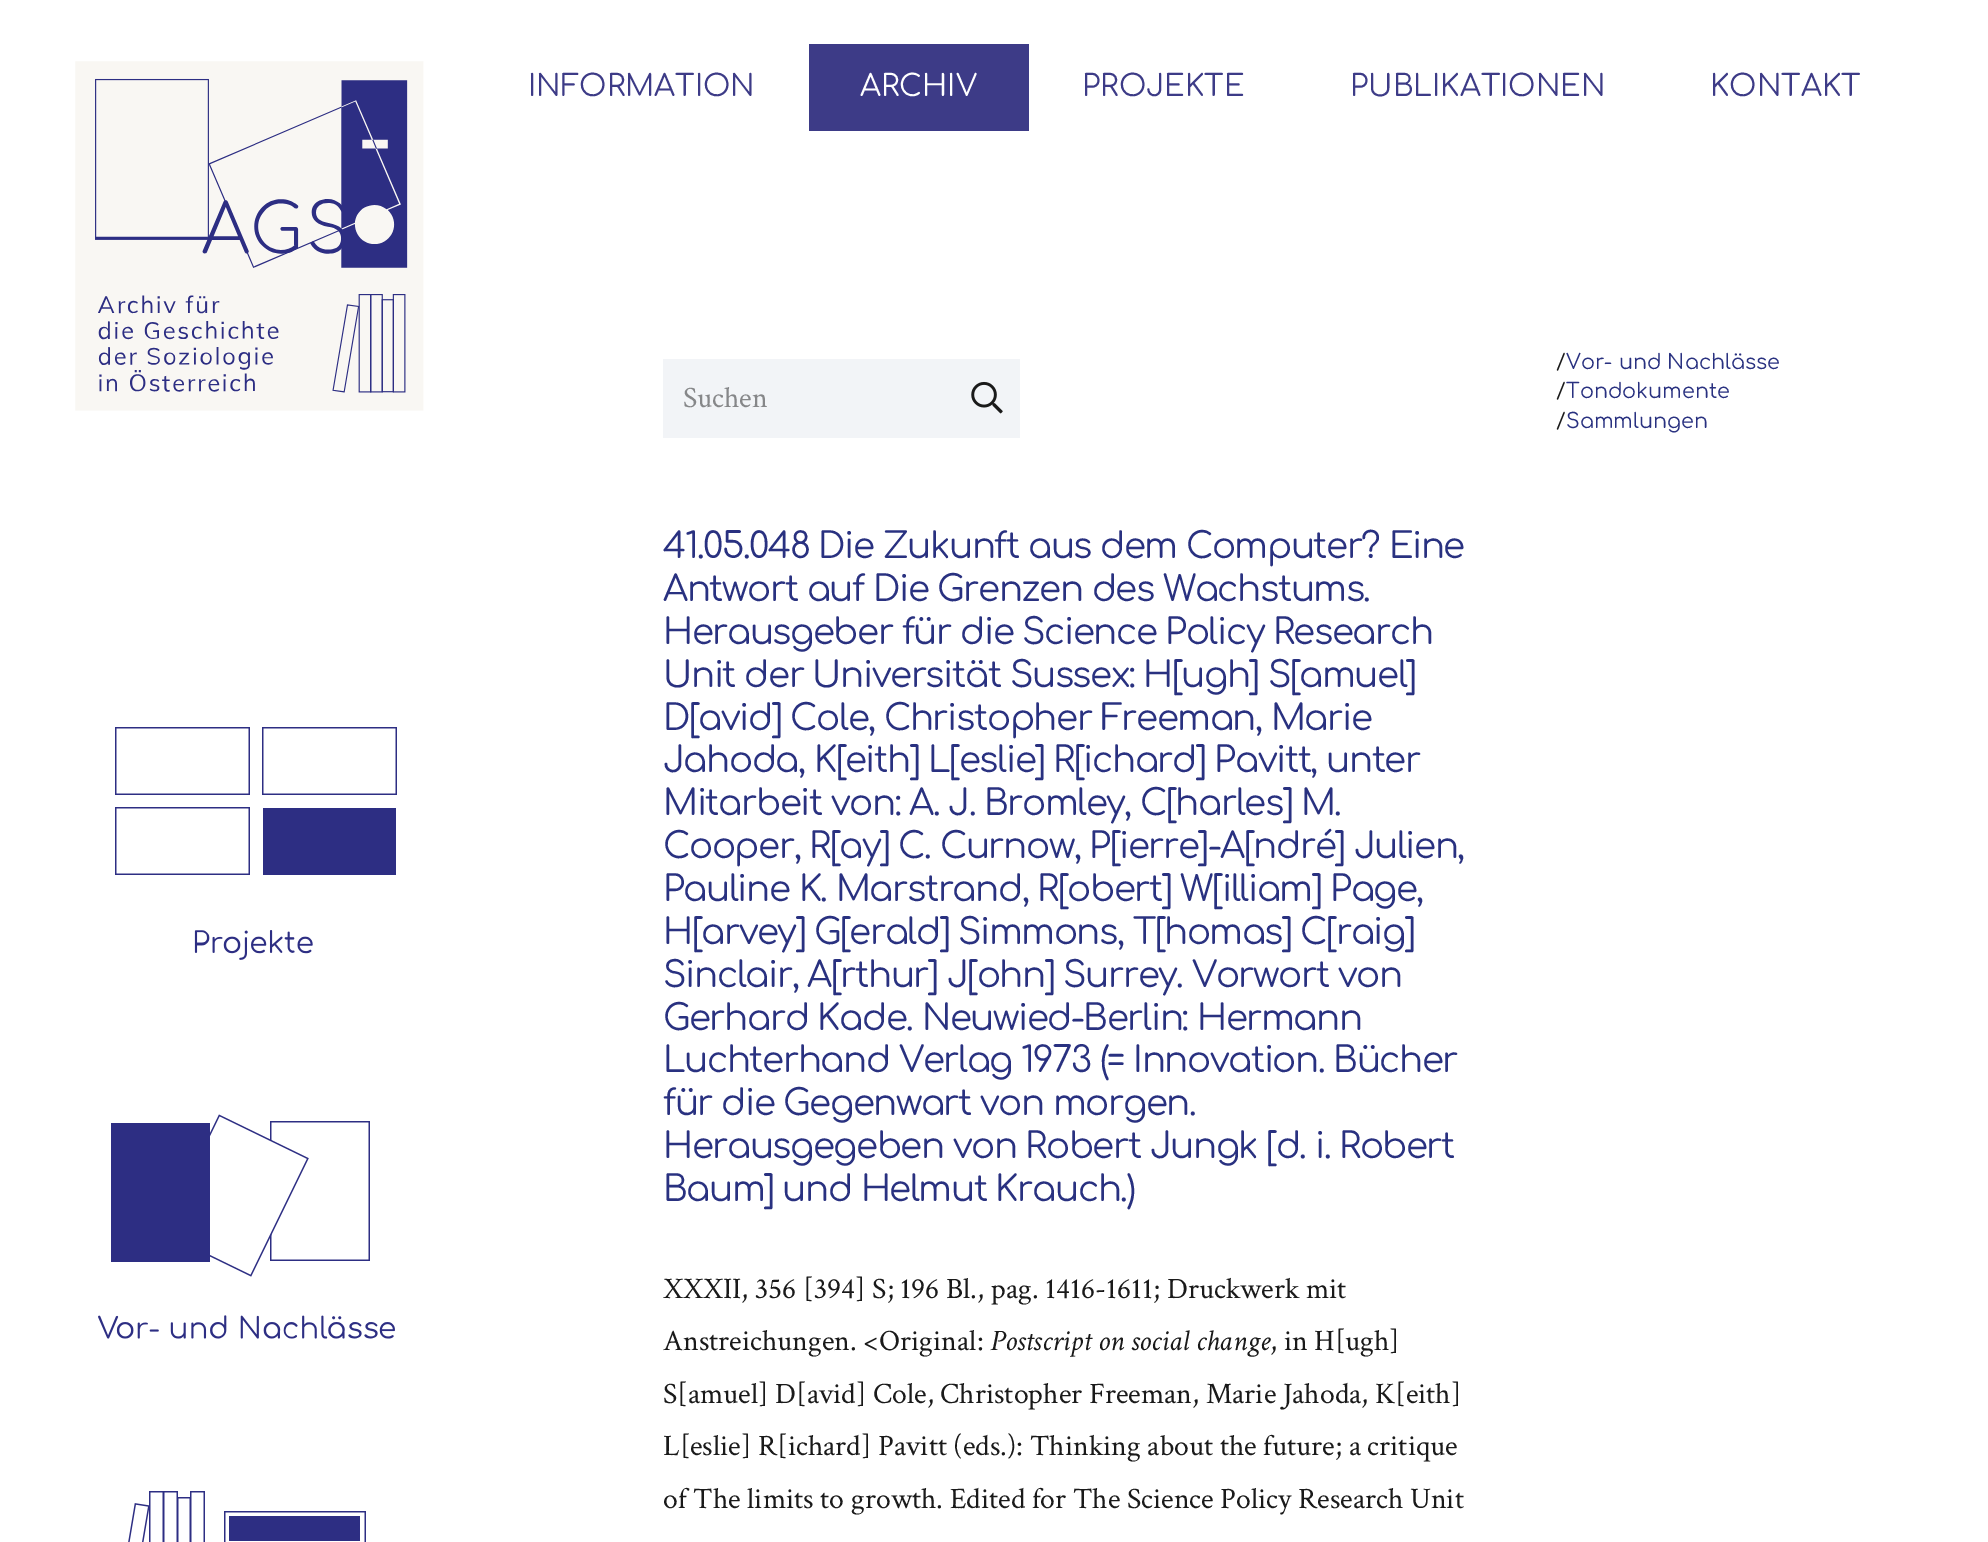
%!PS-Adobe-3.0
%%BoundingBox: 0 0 1988 1542
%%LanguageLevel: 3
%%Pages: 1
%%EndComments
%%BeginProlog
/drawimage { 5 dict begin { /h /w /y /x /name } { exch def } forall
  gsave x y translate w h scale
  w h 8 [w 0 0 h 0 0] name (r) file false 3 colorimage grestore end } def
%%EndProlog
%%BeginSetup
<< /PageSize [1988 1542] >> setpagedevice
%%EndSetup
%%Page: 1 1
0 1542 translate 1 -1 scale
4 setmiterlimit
1 setgray
0 0 1988 1542 rectfill
(images/1.raw) 75 61 349 350 drawimage
0.239 0.231 0.529 setrgbcolor
809 44 220 87 rectfill
(images/2.raw) 115 727 282 233 drawimage
(images/3.raw) 98 1114 297 225 drawimage
(images/4.raw) 128 1491 238 51 drawimage
0.949 0.957 0.969 setrgbcolor
663 359 357 79 rectfill
(images/5.raw) 971 381 32 33 drawimage
/Comfortaa-Regular [29.75 0 0 -29.75 0 0] selectfont
0.239 0.231 0.529 setrgbcolor
528 96 moveto (INFORMATION) show
1 setgray
860 96 moveto (ARCHIV) show
0.239 0.231 0.529 setrgbcolor
1082 96 moveto (PROJEKTE) show
1350 96 moveto (PUBLIKATIONEN) show
1710 96 moveto (KONTAKT) show
/CrimsonText-Regular [29.75 0 0 -29.75 0 0] selectfont
0.525 0.529 0.537 setrgbcolor
683 407 moveto (Suchen) show
/Comfortaa-Regular [20.75 0 0 -20.75 0 0] selectfont
0.102 setgray
1556 369 moveto (/) show
0.161 0.192 0.502 setrgbcolor
1566 369 moveto (Vor- und Nachlässe) show
0.102 setgray
1556 398 moveto (/) show
0.161 0.192 0.502 setrgbcolor
1566 398 moveto (Tondokumente) show
0.102 setgray
1556 428 moveto (/) show
0.161 0.192 0.502 setrgbcolor
1566 428 moveto (Sammlungen) show
/Comfortaa-Regular [35.7 0 0 -35.7 0 0] selectfont
663 558 moveto -1.45 0 (41.05.048 Die Zukunft aus dem Computer? Eine) ashow
663 601 moveto -1.45 0 (Antwort auf Die Grenzen des Wachstums.) ashow
663 644 moveto -1.45 0 (Herausgeber für die Science Policy Research) ashow
663 687 moveto -1.45 0 (Unit der Universität Sussex: H[ugh] S[amuel]) ashow
663 730 moveto -1.45 0 (D[avid] Cole, Christopher Freeman, Marie) ashow
663 772 moveto -1.45 0 (Jahoda, K[eith] L[eslie] R[ichard] Pavitt, unter) ashow
663 815 moveto -1.45 0 (Mitarbeit von: A. J. Bromley, C[harles] M.) ashow
663 858 moveto -1.45 0 (Cooper, R[ay] C. Curnow, P[ierre]-A[ndré] Julien,) ashow
663 901 moveto -1.45 0 (Pauline K. Marstrand, R[obert] W[illiam] Page,) ashow
663 944 moveto -1.45 0 (H[arvey] G[erald] Simmons, T[homas] C[raig]) ashow
663 987 moveto -1.45 0 (Sinclair, A[rthur] J[ohn] Surrey. Vorwort von) ashow
663 1030 moveto -1.45 0 (Gerhard Kade. Neuwied-Berlin: Hermann) ashow
663 1072 moveto -1.45 0 (Luchterhand Verlag 1973 \(= Innovation. Bücher) ashow
663 1115 moveto -1.45 0 (für die Gegenwart von morgen.) ashow
663 1158 moveto -1.45 0 (Herausgegeben von Robert Jungk [d. i. Robert) ashow
663 1201 moveto -1.45 0 (Baum] und Helmut Krauch.\)) ashow
/CrimsonText-Regular [29.75 0 0 -29.75 0 0] selectfont
0.102 setgray
663 1298 moveto (XXXII, 356 [394] S; 196 Bl., pag. 1416-1611; Druckwerk mit) show
663 1350 moveto (Anstreichungen. <Original:) show
/CrimsonText-Italic [29.75 0 0 -29.75 0 0] selectfont
990 1350 moveto (Postscript on social change) show
/CrimsonText-Regular [29.75 0 0 -29.75 0 0] selectfont
1270 1350 moveto (, in H[ugh]) show
663 1403 moveto (S[amuel] D[avid] Cole, Christopher Freeman, Marie Jahoda, K[eith]) show
663 1455 moveto (L[eslie] R[ichard] Pavitt \(eds.\): Thinking about the future; a critique) show
663 1508 moveto (of The limits to growth. Edited for The Science Policy Research Unit) show
showpage
%%EOF
